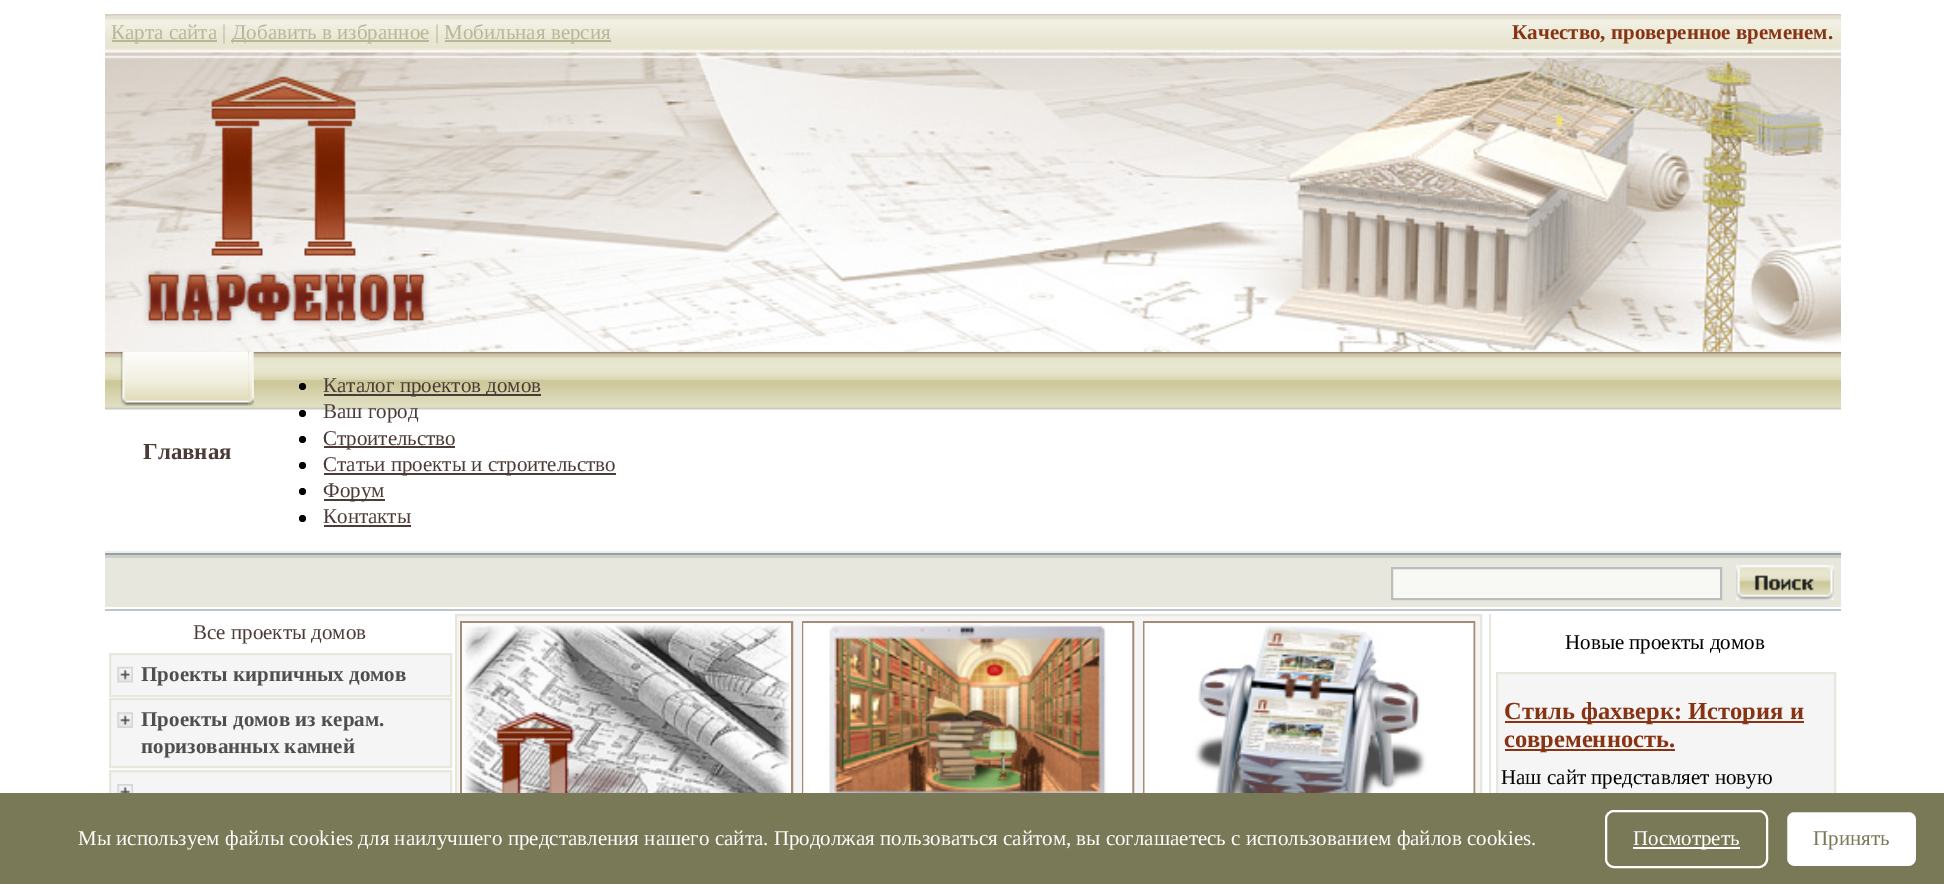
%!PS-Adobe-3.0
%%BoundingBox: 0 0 1944 884
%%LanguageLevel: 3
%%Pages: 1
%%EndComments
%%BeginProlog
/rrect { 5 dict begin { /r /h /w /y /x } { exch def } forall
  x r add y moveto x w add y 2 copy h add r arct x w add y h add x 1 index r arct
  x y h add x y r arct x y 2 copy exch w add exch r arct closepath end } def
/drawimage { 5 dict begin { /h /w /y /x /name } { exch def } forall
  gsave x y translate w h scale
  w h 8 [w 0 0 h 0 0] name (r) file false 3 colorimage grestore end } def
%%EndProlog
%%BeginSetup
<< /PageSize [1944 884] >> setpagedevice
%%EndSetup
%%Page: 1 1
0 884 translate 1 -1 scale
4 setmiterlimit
1 setgray
0 0 1944 884 rectfill
(images/1.raw) 105 14 1736 37 drawimage
0.718 0.718 0.596 setrgbcolor
112 40 105 2 rectfill
231 40 198 2 rectfill
445 40 166 2 rectfill
(images/3.raw) 105 351 1736 59 drawimage
(images/4.raw) 120 351 6 55 drawimage
(images/5.raw) 126 351 123 55 drawimage
(images/6.raw) 248 351 6 55 drawimage
(images/2.raw) 105 50 1736 302 drawimage
0 setgray
newpath 302.5 386.5 3.5 0 360 arc closepath fill
0.298 0.235 0.22 setrgbcolor
324 394 217 2 rectfill
0 setgray
newpath 302.5 413.5 3.5 0 360 arc closepath fill
newpath 302.5 439.5 3.5 0 360 arc closepath fill
0.298 0.235 0.22 setrgbcolor
324 446 131 2 rectfill
0 setgray
newpath 302.5 465.5 3.5 0 360 arc closepath fill
0.298 0.235 0.22 setrgbcolor
324 473 292 2 rectfill
0 setgray
newpath 302.5 491.5 3.5 0 360 arc closepath fill
0.298 0.235 0.22 setrgbcolor
324 499 61 2 rectfill
0 setgray
newpath 302.5 518.5 3.5 0 360 arc closepath fill
0.298 0.235 0.22 setrgbcolor
324 525 87 2 rectfill
0.925 0.929 0.914 setrgbcolor
105 551 1736 2 rectfill
0.584 0.627 0.639 setrgbcolor
105 553 1736 2 rectfill
0.796 0.812 0.792 setrgbcolor
105 555 1736 3 rectfill
0.906 0.906 0.871 setrgbcolor
105 558 1736 49 rectfill
0.973 0.973 0.961 setrgbcolor
newpath 1392 568 moveto 1721 568 lineto 1721 599 lineto 1392 599 lineto closepath gsave fill grestore
0.725 0.745 0.749 setrgbcolor
2 setlinewidth
stroke
(images/7.raw) 1736 565 98 36 drawimage
0.741 0.769 0.792 setrgbcolor
105 609 1736 2 rectfill
0.961 setgray
newpath 110 654 moveto 451 654 lineto 451 696 lineto 110 696 lineto closepath gsave fill grestore
0.906 0.906 0.871 setrgbcolor
stroke
(images/8.raw) 117 666 16 17 drawimage
0.961 setgray
newpath 110 699 moveto 451 699 lineto 451 767 lineto 110 767 lineto closepath gsave fill grestore
0.906 0.906 0.871 setrgbcolor
stroke
(images/9.raw) 117 712 16 16 drawimage
0.961 setgray
111 772 339 21 rectfill
0.906 0.906 0.871 setrgbcolor
110 771 341 68 rectstroke
(images/10.raw) 117 784 16 9 drawimage
0.961 setgray
457 616 1023 177 rectfill
0.906 0.906 0.871 setrgbcolor
456 615 1025 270 rectstroke
0.647 0.549 0.467 setrgbcolor
461 622 331 221 rectstroke
(images/11.raw) 462 623 329 170 drawimage
803 622 330 221 rectstroke
(images/12.raw) 803 623 330 170 drawimage
1144 622 330 221 rectstroke
(images/13.raw) 1144 623 330 170 drawimage
0.906 0.906 0.871 setrgbcolor
1489 614 2 179 rectfill
0.961 setgray
1498 674 336 119 rectfill
0.906 0.906 0.871 setrgbcolor
1497 673 338 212 rectstroke
0.529 0.204 0.078 setrgbcolor
1505 721 299 2 rectfill
1505 749 170 2 rectfill
0.475 0.475 0.345 setrgbcolor
0 793 1944 91 rectfill
1 setgray
1606 811 161 56 8 rrect stroke
1633 847 107 2 rectfill
1786 811 131 56 8 rrect gsave fill grestore
0.475 0.475 0.345 setrgbcolor
stroke
/LiberationSerif-Regular [21 0 0 -21 0 0] selectfont
0.718 0.718 0.596 setrgbcolor
111 39 moveto (Карта сайта |) show
232 39 moveto (Добавить в избранное |) show
444 39 moveto (Мобильная версия) show
/LiberationSerif-Bold [21 0 0 -21 0 0] selectfont
0.529 0.204 0.078 setrgbcolor
1512 39 moveto (Качество, проверенное временем.) show
/LiberationSerif-Bold [23 0 0 -23 0 0] selectfont
0.298 0.235 0.22 setrgbcolor
143 459 moveto (Главная) show
/LiberationSerif-Regular [21 0 0 -21 0 0] selectfont
323 392 moveto (Каталог проектов домов) show
323 418 moveto (Ваш город) show
323 445 moveto (Строительство) show
323 471 moveto (Статьи проекты и строительство) show
323 497 moveto (Форум) show
323 523 moveto (Контакты) show
193 639 moveto (Все проекты домов) show
/LiberationSerif-Bold [21 0 0 -21 0 0] selectfont
0.31 setgray
141 681 moveto (Проекты кирпичных домов) show
141 726 moveto (Проекты домов из керам.) show
141 753 moveto (поризованных камней) show
/LiberationSerif-Regular [21 0 0 -21 0 0] selectfont
0 setgray
1565 649 moveto (Новые проекты домов) show
/LiberationSerif-Bold [24.5 0 0 -24.5 0 0] selectfont
0.529 0.204 0.078 setrgbcolor
1504 719 moveto (Стиль фахверк: История и) show
1504 747 moveto (современность.) show
/LiberationSerif-Regular [21 0 0 -21 0 0] selectfont
0 setgray
1501 784 moveto (Наш сайт представляет новую) show
1 setgray
78 845 moveto (Мы используем файлы cookies для наилучшего представления нашего сайта. Продолжая пользоваться сайтом, вы соглашаетесь с использованием файлов cookies.) show
1633 845 moveto (Посмотреть) show
0.475 0.475 0.345 setrgbcolor
1813 845 moveto (Принять) show
showpage
%%EOF
